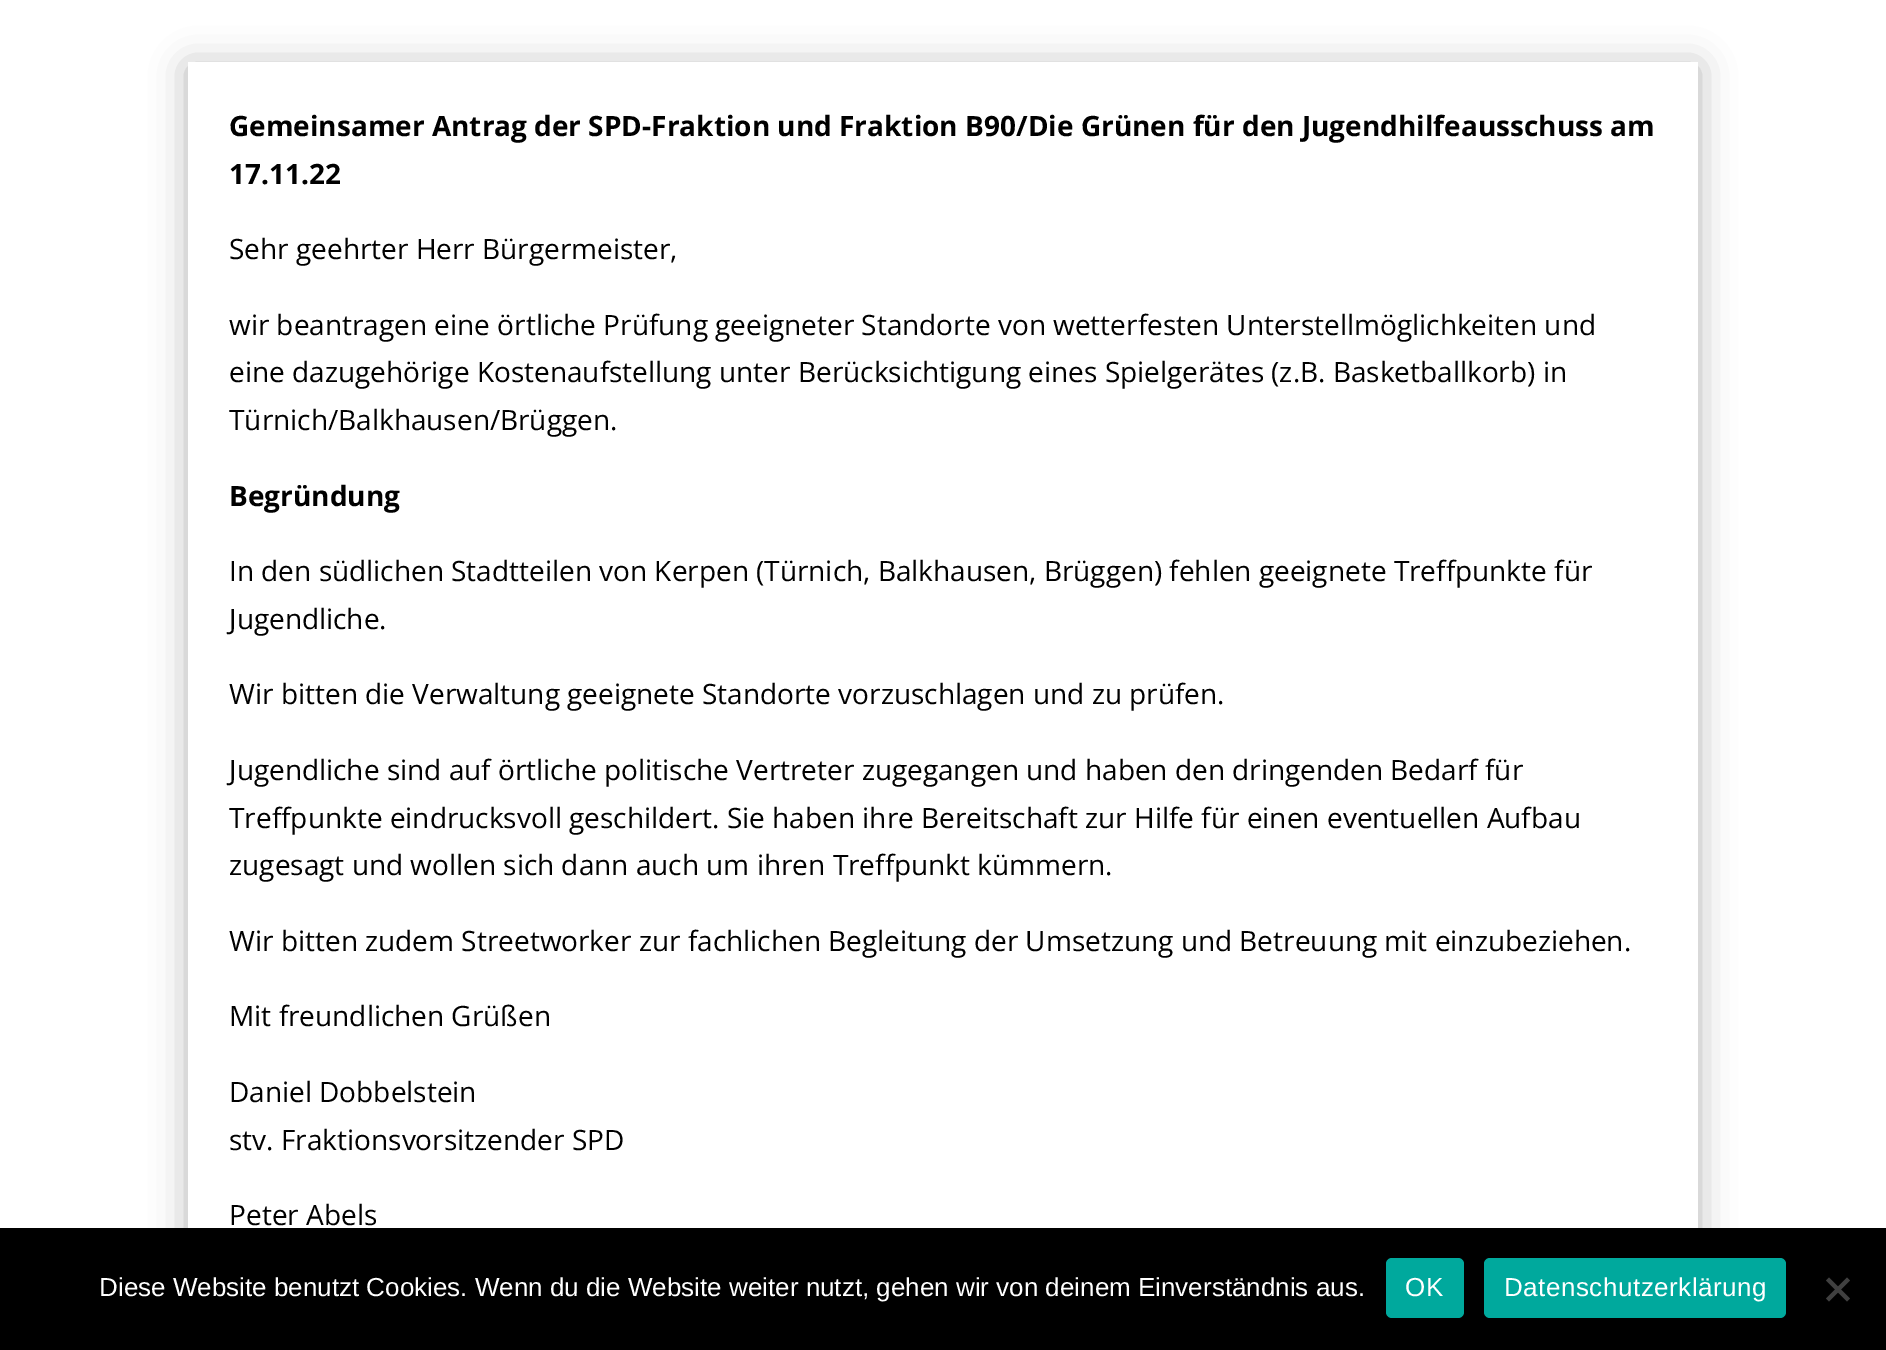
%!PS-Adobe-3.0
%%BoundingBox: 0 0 1886 1350
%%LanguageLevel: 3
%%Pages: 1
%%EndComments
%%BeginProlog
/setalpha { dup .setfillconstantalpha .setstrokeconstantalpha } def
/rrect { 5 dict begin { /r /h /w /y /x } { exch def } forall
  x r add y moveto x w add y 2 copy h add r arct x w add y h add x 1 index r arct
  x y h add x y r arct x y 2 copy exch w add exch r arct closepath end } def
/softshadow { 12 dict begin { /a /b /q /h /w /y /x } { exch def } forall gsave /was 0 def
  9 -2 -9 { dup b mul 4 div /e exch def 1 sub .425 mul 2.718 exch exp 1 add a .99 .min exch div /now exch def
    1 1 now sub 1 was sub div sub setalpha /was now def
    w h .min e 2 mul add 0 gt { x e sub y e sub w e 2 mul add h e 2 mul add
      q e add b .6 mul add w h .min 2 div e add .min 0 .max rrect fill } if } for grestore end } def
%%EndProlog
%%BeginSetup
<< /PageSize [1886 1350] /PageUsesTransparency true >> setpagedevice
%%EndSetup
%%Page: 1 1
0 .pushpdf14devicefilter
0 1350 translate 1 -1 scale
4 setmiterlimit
1 setgray
0 0 1886 1350 rectfill
gsave
newpath 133 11 moveto 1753 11 lineto 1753 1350 lineto 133 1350 lineto closepath 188 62 moveto 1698 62 lineto 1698 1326 lineto 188 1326 lineto closepath eoclip newpath
0 setgray
188 66 1510 1264 0 18 0.3 softshadow
grestore
0 setgray
0 1228 1886 122 rectfill
0 0.663 0.616 setrgbcolor
1386 1258 78 60 6 rrect fill
1484 1258 302 60 6 rrect fill
0.251 setgray
newpath 1847 1277.5 moveto 1850 1280.5 lineto 1829 1301.5 lineto 1826 1298.5 lineto closepath fill
newpath 1826 1280.5 moveto 1829 1277.5 lineto 1850 1298.5 lineto 1847 1301.5 lineto closepath fill
/OpenSans-Bold [28 0 0 -28 0 0] selectfont
0 setgray
229 136 moveto (Gemeinsamer Antrag der SPD-Fraktion und Fraktion B90/Die Grünen für den Jugendhilfeausschuss am) show
229 184 moveto (17.11.22) show
/OpenSans-Regular [28 0 0 -28 0 0] selectfont
229 259 moveto (Sehr geehrter Herr Bürgermeister,) show
229 335 moveto (wir beantragen eine örtliche Prüfung geeigneter Standorte von wetterfesten Unterstellmöglichkeiten und) show
229 382 moveto (eine dazugehörige Kostenaufstellung unter Berücksichtigung eines Spielgerätes \(z.B. Basketballkorb\) in) show
229 430 moveto (Türnich/Balkhausen/Brüggen.) show
/OpenSans-Bold [28 0 0 -28 0 0] selectfont
229 506 moveto (Begründung) show
/OpenSans-Regular [28 0 0 -28 0 0] selectfont
229 581 moveto (In den südlichen Stadtteilen von Kerpen \(Türnich, Balkhausen, Brüggen\) fehlen geeignete Treffpunkte für) show
229 629 moveto (Jugendliche.) show
229 704 moveto (Wir bitten die Verwaltung geeignete Standorte vorzuschlagen und zu prüfen.) show
229 780 moveto (Jugendliche sind auf örtliche politische Vertreter zugegangen und haben den dringenden Bedarf für) show
229 828 moveto (Treffpunkte eindrucksvoll geschildert. Sie haben ihre Bereitschaft zur Hilfe für einen eventuellen Aufbau) show
229 875 moveto (zugesagt und wollen sich dann auch um ihren Treffpunkt kümmern.) show
229 951 moveto (Wir bitten zudem Streetworker zur fachlichen Begleitung der Umsetzung und Betreuung mit einzubeziehen.) show
229 1026 moveto (Mit freundlichen Grüßen) show
229 1102 moveto (Daniel Dobbelstein) show
229 1150 moveto (stv. Fraktionsvorsitzender SPD) show
229 1225 moveto (Peter Abels) show
/LiberationSans-Regular [26 0 0 -26 0 0] selectfont
1 setgray
99 1296 moveto (Diese Website benutzt Cookies. Wenn du die Website weiter nutzt, gehen wir von deinem Einverständnis aus.) show
1405 1296 moveto 0.5 0 (OK) ashow
1504 1296 moveto 0.5 0 (Datenschutzerklärung) ashow
.poppdf14devicefilter showpage
%%EOF
